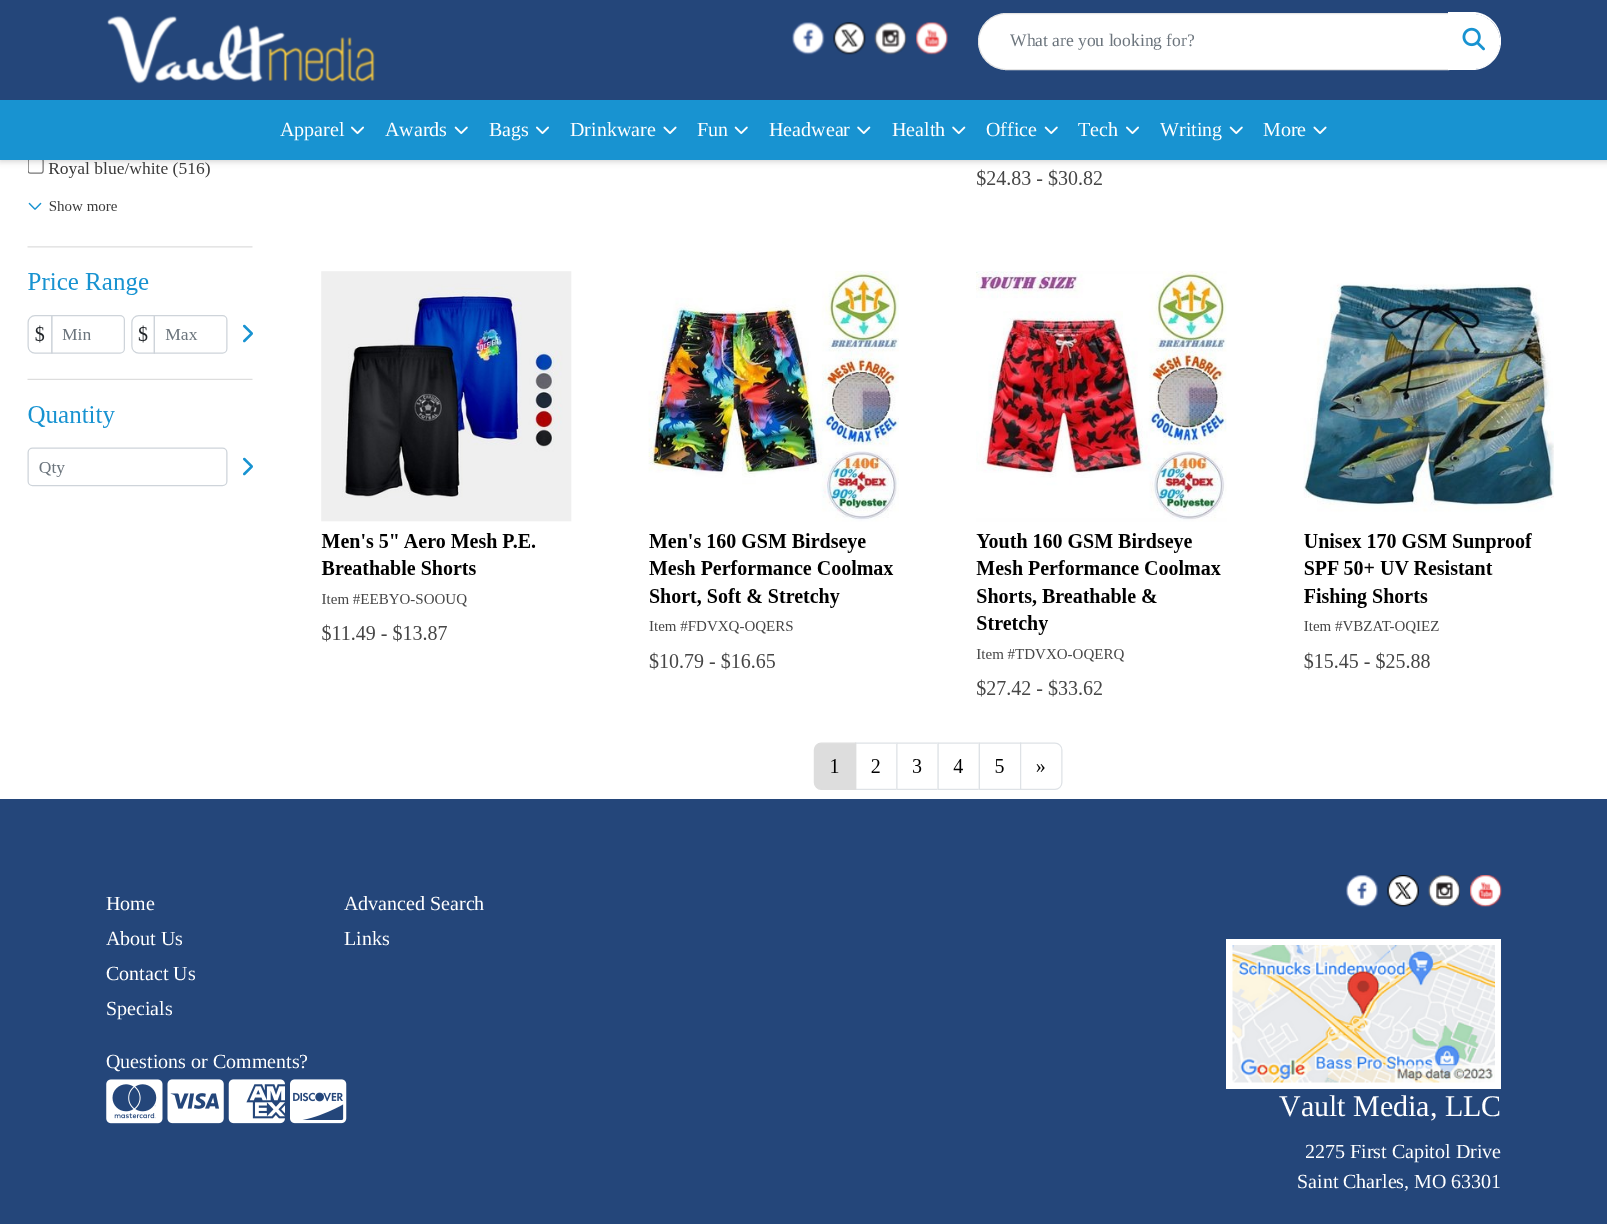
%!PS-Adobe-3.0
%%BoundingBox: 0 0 1607 1224
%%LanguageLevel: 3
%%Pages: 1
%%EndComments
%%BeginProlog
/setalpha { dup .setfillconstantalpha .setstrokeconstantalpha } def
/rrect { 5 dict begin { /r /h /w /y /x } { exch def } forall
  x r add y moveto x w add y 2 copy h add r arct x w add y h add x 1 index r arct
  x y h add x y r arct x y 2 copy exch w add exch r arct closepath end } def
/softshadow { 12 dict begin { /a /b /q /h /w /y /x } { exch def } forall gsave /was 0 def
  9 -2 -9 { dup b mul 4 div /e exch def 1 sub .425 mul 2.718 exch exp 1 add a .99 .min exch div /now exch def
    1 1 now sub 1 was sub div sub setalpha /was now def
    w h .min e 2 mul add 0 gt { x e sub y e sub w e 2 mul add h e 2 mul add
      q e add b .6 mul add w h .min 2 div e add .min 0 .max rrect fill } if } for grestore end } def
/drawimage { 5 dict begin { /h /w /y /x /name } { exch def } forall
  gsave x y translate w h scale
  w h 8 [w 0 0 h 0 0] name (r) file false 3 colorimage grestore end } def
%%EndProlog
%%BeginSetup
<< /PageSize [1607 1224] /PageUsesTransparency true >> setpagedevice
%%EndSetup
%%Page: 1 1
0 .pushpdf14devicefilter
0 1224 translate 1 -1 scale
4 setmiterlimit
1 setgray
0 0 1607 1224 rectfill
(images/11.raw) 27 160 1527 630 drawimage
0 setgray
0 0 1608 160 0 3 0.1 softshadow
0.141 0.275 0.478 setrgbcolor
0 0 1607 100 rectfill
(images/1.raw) 107 15 268 69 drawimage
(images/2.raw) 792 22 33 33 drawimage
(images/3.raw) 833 22 33 33 drawimage
(images/4.raw) 874 22 33 33 drawimage
(images/5.raw) 916 22 32 33 drawimage
1 setgray
newpath 1006.5 13.5 moveto 1448.5 13.5 lineto 1448.5 69.5 lineto 1006.5 69.5 lineto 991 69.5 978.5 57 978.5 41.5 curveto 978.5 26 991 13.5 1006.5 13.5 curveto closepath gsave fill grestore
0.894 setgray
stroke
1 setgray
newpath 1448 14 moveto 1472.5 14 lineto 1487.5 14 1500 26.5 1500 41.5 curveto 1500 56.5 1487.5 69 1472.5 69 curveto 1448 69 lineto closepath fill
newpath 1448 12 moveto 1472 12 lineto 1488 12 1501 25 1501 41 curveto 1501 57 1488 70 1472 70 curveto 1448 70 lineto closepath 1448 14 moveto 1472 14 lineto 1488 14 1500 26 1500 41 curveto 1500 56 1488 69 1472 69 curveto 1448 69 lineto closepath eofill
(images/6.raw) 1462 27 23 24 drawimage
0 setgray
0 103 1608 60 0 2.5 0.07 softshadow
0.094 0.576 0.82 setrgbcolor
0 100 1607 60 rectfill
(images/7.raw) 351 126 13 8 drawimage
(images/8.raw) 454 126 14 8 drawimage
(images/7.raw) 536 126 13 8 drawimage
(images/9.raw) 663 126 14 8 drawimage
(images/8.raw) 734 126 14 8 drawimage
(images/10.raw) 857 126 14 8 drawimage
(images/10.raw) 952 126 14 8 drawimage
(images/8.raw) 1044 126 14 8 drawimage
(images/7.raw) 1126 126 13 8 drawimage
(images/8.raw) 1229 126 14 8 drawimage
(images/9.raw) 1313 126 14 8 drawimage
0.141 0.275 0.478 setrgbcolor
0 799 1607 425 rectfill
(images/12.raw) 106 1079 57 45 drawimage
(images/13.raw) 167 1079 57 45 drawimage
(images/14.raw) 228 1079 57 45 drawimage
(images/15.raw) 290 1079 57 45 drawimage
(images/16.raw) 1346 875 32 32 drawimage
(images/17.raw) 1387 875 32 32 drawimage
(images/18.raw) 1428 875 32 32 drawimage
(images/19.raw) 1470 875 32 32 drawimage
1 setgray
1226 939 275 150 rectfill
(images/20.raw) 1232 945 263 138 drawimage
/LiberationSerif-Regular [17.5 0 0 -17.5 0 0] selectfont
0.424 0.459 0.49 setrgbcolor
1010 46 moveto (What are you looking for?) show
/LiberationSerif-Regular [20 0 0 -20 0 0] selectfont
1 setgray
280 136 moveto (Apparel) show
385 136 moveto (Awards) show
489 136 moveto (Bags) show
570 136 moveto (Drinkware) show
697 136 moveto (Fun) show
769 136 moveto (Headwear) show
892 136 moveto (Health) show
986 136 moveto (Office) show
1078 136 moveto (Tech) show
1160 136 moveto (Writing) show
1263 136 moveto (More) show
106 910 moveto (Home) show
106 945 moveto (About Us) show
106 980 moveto (Contact Us) show
106 1015 moveto (Specials) show
344 910 moveto (Advanced Search) show
344 945 moveto (Links) show
106 1068 moveto (Questions or Comments?) show
/LiberationSerif-Regular [30 0 0 -30 0 0] selectfont
1279 1116 moveto (Vault Media, LLC) show
/LiberationSerif-Regular [20 0 0 -20 0 0] selectfont
1305 1158 moveto (2275 First Capitol Drive) show
1297 1188 moveto (Saint Charles, MO 63301) show
.poppdf14devicefilter showpage
%%EOF
